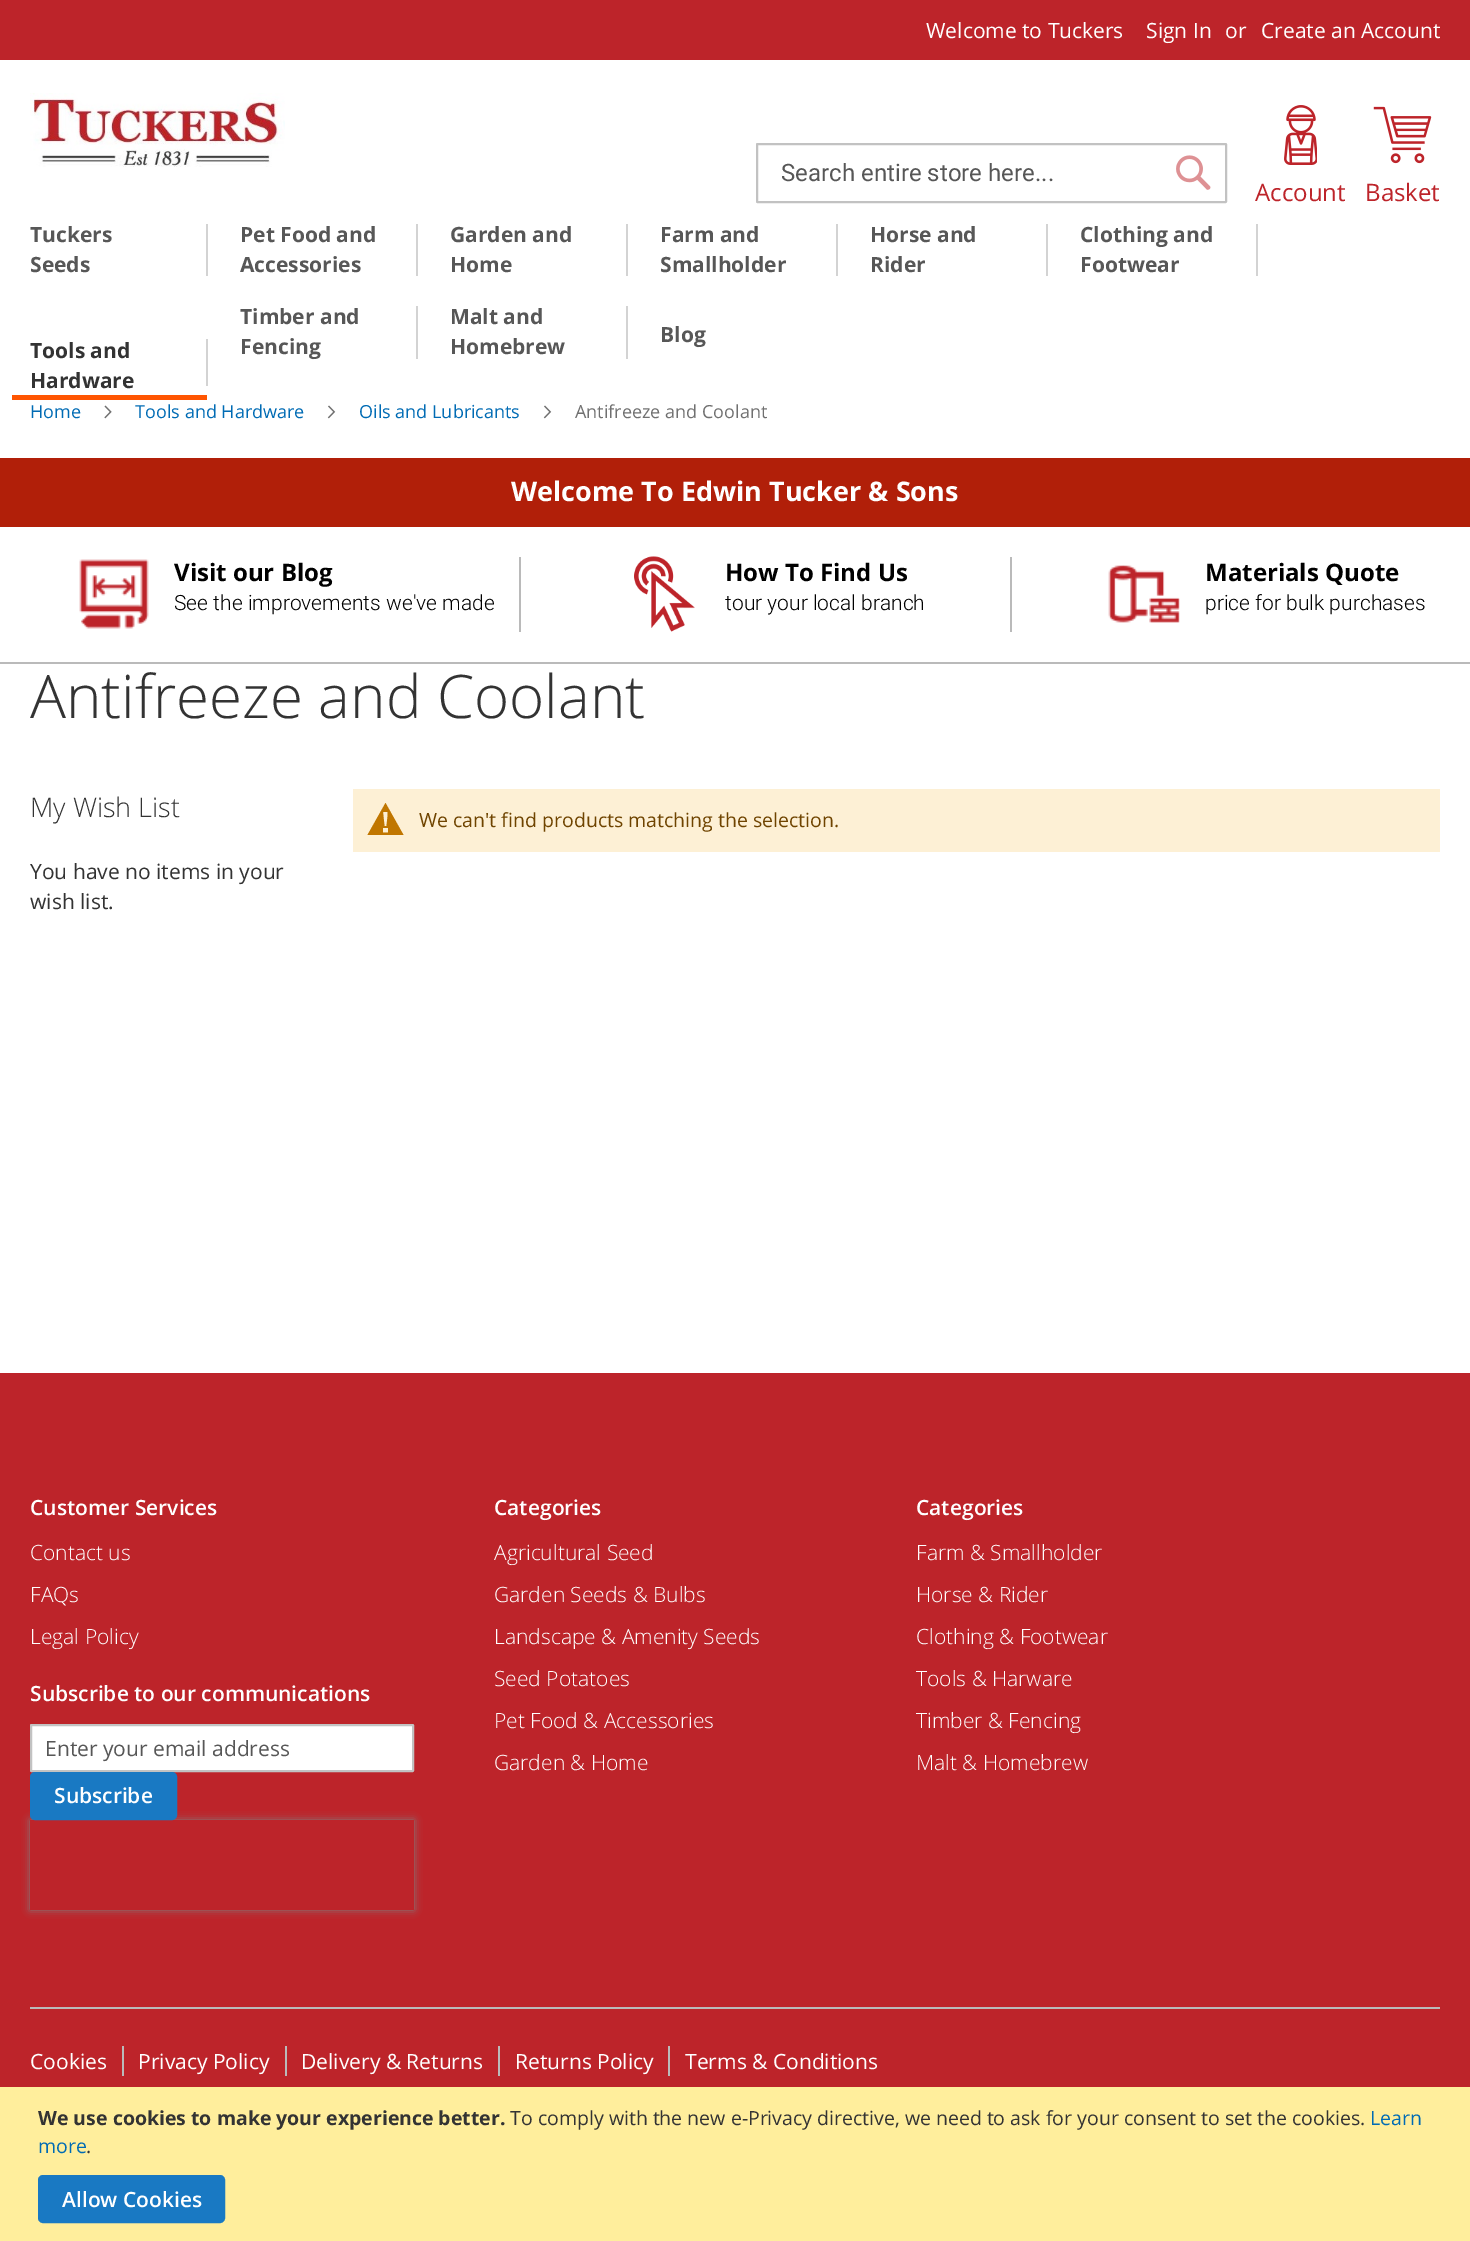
%!PS-Adobe-3.0
%%BoundingBox: 0 0 1470 2241
%%LanguageLevel: 3
%%Pages: 1
%%EndComments
%%BeginProlog
/setalpha { dup .setfillconstantalpha .setstrokeconstantalpha } def
/rrect { 5 dict begin { /r /h /w /y /x } { exch def } forall
  x r add y moveto x w add y 2 copy h add r arct x w add y h add x 1 index r arct
  x y h add x y r arct x y 2 copy exch w add exch r arct closepath end } def
/softshadow { 12 dict begin { /a /b /q /h /w /y /x } { exch def } forall gsave /was 0 def
  9 -2 -9 { dup b mul 4 div /e exch def 1 sub .425 mul 2.718 exch exp 1 add a .99 .min exch div /now exch def
    1 1 now sub 1 was sub div sub setalpha /was now def
    w h .min e 2 mul add 0 gt { x e sub y e sub w e 2 mul add h e 2 mul add
      q e add b .6 mul add w h .min 2 div e add .min 0 .max rrect fill } if } for grestore end } def
/drawimage { 5 dict begin { /h /w /y /x /name } { exch def } forall
  gsave x y translate w h scale
  w h 8 [w 0 0 h 0 0] name (r) file false 3 colorimage grestore end } def
%%EndProlog
%%BeginSetup
<< /PageSize [1470 2241] /PageUsesTransparency true >> setpagedevice
%%EndSetup
%%Page: 1 1
0 .pushpdf14devicefilter
0 2241 translate 1 -1 scale
4 setmiterlimit
1 setgray
0 0 1470 2241 rectfill
0.741 0.141 0.165 setrgbcolor
0 0 1470 60 rectfill
(images/1.raw) 30 93 255 74 drawimage
0.761 setgray
2 setlinewidth
757 144 469 58 0.5 rrect stroke
(images/2.raw) 1176 155 35 35 drawimage
(images/3.raw) 1284 105 33 60 drawimage
(images/4.raw) 1373 106 59 58 drawimage
0.827 setgray
206 224 2 52 rectfill
416 224 2 52 rectfill
626 224 2 52 rectfill
836 224 2 52 rectfill
1046 224 2 52 rectfill
1256 224 2 52 rectfill
416 306 2 53 rectfill
626 306 2 53 rectfill
1 0.333 0.004 setrgbcolor
12 395 195 5 rectfill
0.827 setgray
206 339 2 47 rectfill
(images/5.raw) 104 405 8 14 drawimage
(images/6.raw) 327 405 9 14 drawimage
(images/6.raw) 543 405 9 14 drawimage
0.694 0.122 0.035 setrgbcolor
0 458 1470 69 rectfill
0.729 setgray
0 662 1470 2 rectfill
(images/7.raw) 79 559 70 70 drawimage
519 557 2 75 rectfill
(images/8.raw) 634 556 61 76 drawimage
1010 557 2 75 rectfill
(images/9.raw) 1108 565 72 58 drawimage
0.992 0.941 0.835 setrgbcolor
353 789 1087 63 rectfill
0.753 0.463 0 setrgbcolor
newpath 385.5 803 moveto 367.5 835 lineto 403.5 835 lineto closepath 387.5 812 moveto 387.5 817 lineto 386.5 826 lineto 384.5 826 lineto 383.5 817 lineto 383 812 lineto closepath 383 832.5 moveto 383 828 lineto 388 828 lineto 388 832.5 lineto closepath fill
0.741 0.141 0.165 setrgbcolor
0 1373 1470 714 rectfill
1 setgray
31 1725 382 46 0.5 rrect gsave fill grestore
0.761 setgray
stroke
gsave
newpath 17 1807 moveto 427 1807 lineto 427 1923 lineto 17 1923 lineto closepath 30 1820 moveto 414 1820 lineto 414 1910 lineto 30 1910 lineto closepath eoclip newpath
0.502 setgray
30 1820 384 90 0 4 1 softshadow
grestore
0.098 0.475 0.765 setrgbcolor
31 1773 145 46 4 rrect gsave fill grestore
stroke
0.729 setgray
30 2007 1410 2 rectfill
122 2046 2 30 rectfill
285 2046 2 30 rectfill
498 2046 2 30 rectfill
668 2046 2 30 rectfill
1 0.933 0.612 setrgbcolor
0 2087 1470 154 rectfill
0.098 0.475 0.765 setrgbcolor
39 2176 185 46 4 rrect gsave fill grestore
stroke
/OpenSans-Regular [21 0 0 -21 0 0] selectfont
1 setgray
926 38 moveto (Welcome to Tuckers) show
1146 38 moveto (Sign In) show
1225 38 moveto (or) show
1261 38 moveto (Create an Account) show
/Roboto-Regular [24 0 0 -24 0 0] selectfont
0.341 setgray
781 181 moveto (Search entire store here...) show
/OpenSans-Regular [24 0 0 -24 0 0] selectfont
0.741 0.141 0.165 setrgbcolor
1255 201 moveto (Account) show
1365 201 moveto (Basket) show
/OpenSans-Bold [21 0 0 -21 0 0] selectfont
0.341 setgray
30 242 moveto (Tuckers) show
30 272 moveto (Seeds) show
240 242 moveto (Pet Food and) show
240 272 moveto (Accessories) show
450 242 moveto (Garden and) show
450 272 moveto (Home) show
660 242 moveto (Farm and) show
660 272 moveto (Smallholder) show
870 242 moveto (Horse and) show
870 272 moveto (Rider) show
1080 242 moveto (Clothing and) show
1080 272 moveto (Footwear) show
240 324 moveto (Timber and) show
240 354 moveto (Fencing) show
450 324 moveto (Malt and) show
450 354 moveto (Homebrew) show
660 342 moveto (Blog) show
0.2 setgray
30 358 moveto (Tools and) show
30 388 moveto (Hardware) show
/OpenSans-Regular [18 0 0 -18 0 0] selectfont
0 0.42 0.706 setrgbcolor
30 418 moveto (Home) show
135 418 moveto (Tools and Hardware) show
359 418 moveto (Oils and Lubricants) show
0.439 setgray
575 418 moveto (Antifreeze and Coolant) show
/OpenSans-Bold [27 0 0 -27 0 0] selectfont
1 setgray
511 501 moveto (Welcome To Edwin Tucker & Sons) show
/OpenSans-Bold [24 0 0 -24 0 0] selectfont
0 setgray
174 581 moveto (Visit our Blog) show
/Roboto-Light [21 0 0 -21 0 0] selectfont
174 610 moveto (See the improvements we've made) show
/OpenSans-Bold [24 0 0 -24 0 0] selectfont
725 581 moveto (How To Find Us) show
/Roboto-Light [21 0 0 -21 0 0] selectfont
725 610 moveto (tour your local branch) show
/OpenSans-Bold [24 0 0 -24 0 0] selectfont
1205 581 moveto (Materials Quote) show
/Roboto-Light [21 0 0 -21 0 0] selectfont
1205 610 moveto (price for bulk purchases) show
/OpenSans-Light [60 0 0 -60 0 0] selectfont
0.2 setgray
30 718 moveto (Antifreeze and Coolant) show
/OpenSans-Light [27 0 0 -27 0 0] selectfont
30 817 moveto (My Wish List) show
/OpenSans-Regular [21 0 0 -21 0 0] selectfont
30 879 moveto (You have no items in your) show
30 909 moveto (wish list.) show
/OpenSans-Regular [19.5 0 0 -19.5 0 0] selectfont
0.435 0.267 0 setrgbcolor
419 827 moveto (We can't find products matching the selection.) show
/OpenSans-SemiBold [21 0 0 -21 0 0] selectfont
1 setgray
30 1515 moveto (Customer Services) show
/OpenSans-Light [21 0 0 -21 0 0] selectfont
30 1560 moveto (Contact us) show
30 1602 moveto (FAQs) show
30 1644 moveto (Legal Policy) show
/OpenSans-SemiBold [21 0 0 -21 0 0] selectfont
30 1701 moveto (Subscribe to our communications) show
/OpenSans-Regular [21 0 0 -21 0 0] selectfont
0.341 setgray
45 1756 moveto (Enter your email address) show
/OpenSans-SemiBold [21 0 0 -21 0 0] selectfont
1 setgray
54 1803 moveto (Subscribe) show
494 1515 moveto (Categories) show
/OpenSans-Light [21 0 0 -21 0 0] selectfont
494 1560 moveto (Agricultural Seed) show
494 1602 moveto (Garden Seeds & Bulbs) show
494 1644 moveto (Landscape & Amenity Seeds) show
494 1686 moveto (Seed Potatoes) show
494 1728 moveto (Pet Food & Accessories) show
494 1770 moveto (Garden & Home) show
/OpenSans-SemiBold [21 0 0 -21 0 0] selectfont
916 1515 moveto (Categories) show
/OpenSans-Light [21 0 0 -21 0 0] selectfont
916 1560 moveto (Farm & Smallholder) show
916 1602 moveto (Horse & Rider) show
916 1644 moveto (Clothing & Footwear) show
916 1686 moveto (Tools & Harware) show
916 1728 moveto (Timber & Fencing) show
916 1770 moveto (Malt & Homebrew) show
/OpenSans-Regular [21 0 0 -21 0 0] selectfont
30 2069 moveto (Cookies) show
138 2069 moveto (Privacy Policy) show
301 2069 moveto (Delivery & Returns) show
515 2069 moveto (Returns Policy) show
685 2069 moveto (Terms & Conditions) show
/OpenSans-Bold [19.5 0 0 -19.5 0 0] selectfont
0.2 setgray
38 2125 moveto (We use cookies to make your experience better.) show
/OpenSans-Regular [19.5 0 0 -19.5 0 0] selectfont
510 2125 moveto (To comply with the new e-Privacy directive, we need to ask for your consent to set the cookies.) show
0 0.42 0.706 setrgbcolor
1370 2125 moveto (Learn) show
38 2153 moveto (more) show
0.2 setgray
86 2153 moveto (.) show
/OpenSans-SemiBold [21 0 0 -21 0 0] selectfont
1 setgray
62 2207 moveto (Allow Cookies) show
.poppdf14devicefilter showpage
%%EOF
